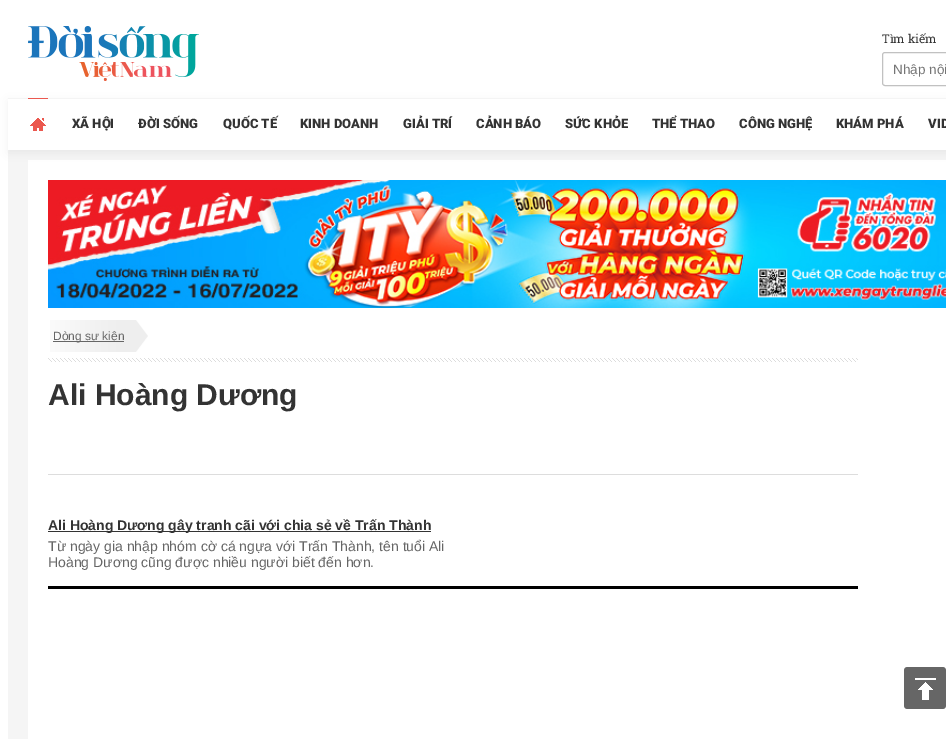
%!PS-Adobe-3.0
%%BoundingBox: 0 0 946 739
%%LanguageLevel: 3
%%Pages: 1
%%EndComments
%%BeginProlog
/setalpha { dup .setfillconstantalpha .setstrokeconstantalpha } def
/rrect { 5 dict begin { /r /h /w /y /x } { exch def } forall
  x r add y moveto x w add y 2 copy h add r arct x w add y h add x 1 index r arct
  x y h add x y r arct x y 2 copy exch w add exch r arct closepath end } def
/softshadow { 12 dict begin { /a /b /q /h /w /y /x } { exch def } forall gsave /was 0 def
  9 -2 -9 { dup b mul 4 div /e exch def 1 sub .425 mul 2.718 exch exp 1 add a .99 .min exch div /now exch def
    1 1 now sub 1 was sub div sub setalpha /was now def
    w h .min e 2 mul add 0 gt { x e sub y e sub w e 2 mul add h e 2 mul add
      q e add b .6 mul add w h .min 2 div e add .min 0 .max rrect fill } if } for grestore end } def
/drawimage { 5 dict begin { /h /w /y /x /name } { exch def } forall
  gsave x y translate w h scale
  w h 8 [w 0 0 h 0 0] name (r) file false 3 colorimage grestore end } def
%%EndProlog
%%BeginSetup
<< /PageSize [946 739] /PageUsesTransparency true >> setpagedevice
%%EndSetup
%%Page: 1 1
0 .pushpdf14devicefilter
0 739 translate 1 -1 scale
4 setmiterlimit
1 setgray
0 0 946 739 rectfill
0.961 setgray
8 150 938 589 rectfill
(images/1.raw) 28 26 171 55 drawimage
0.757 setgray
882.5 52.5 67 33 2.5 rrect stroke
1 setgray
28 160 918 579 rectfill
0 setgray
8 101 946 52 0 5 0.05 softshadow
1 setgray
8 99 938 51 rectfill
0.957 setgray
8 98 938 1 rectfill
(images/2.raw) 30 118 16 13 drawimage
0.922 0.345 0.31 setrgbcolor
28 98 20 1 rectfill
(images/3.raw) 48 180 898 128 drawimage
(images/4.raw) 50 320 98 32 drawimage
0.4 setgray
53 341 71 1 rectfill
(images/5.raw) 48 358 810 4 drawimage
0.867 setgray
48 474 810 1 rectfill
0 setgray
48 586 810 3 rectfill
0.2 setgray
48 531 383 1 rectfill
(images/6.raw) 904 667 42 42 drawimage
/RobotoSlab-Regular [12 0 0 -12 0 0] selectfont
882 43 moveto (Tìm kiếm) show
/LiberationSans-Regular [13.5 0 0 -13.5 0 0] selectfont
0.459 setgray
893 74 moveto (Nhập nội) show
/Roboto-Black [13 0 0 -13 0 0] selectfont
0.2 setgray
72 128 moveto (XÃ HỘI) show
138 128 moveto (ĐỜI SỐNG) show
223 128 moveto (QUỐC TẾ) show
300 128 moveto (KINH DOANH) show
403 128 moveto (GIẢI TRÍ) show
476 128 moveto (CẢNH BÁO) show
565 128 moveto (SỨC KHỎE) show
652 128 moveto (THỂ THAO) show
739 128 moveto (CÔNG NGHỆ) show
836 128 moveto (KHÁM PHÁ) show
928 128 moveto (VID) show
/LiberationSans-Regular [12 0 0 -12 0 0] selectfont
0.4 setgray
53 340 moveto (Dòng sự kiện) show
/LiberationSans-Bold [30 0 0 -30 0 0] selectfont
0.2 setgray
48 405 moveto (Ali Hoàng Dương) show
/LiberationSans-Bold [14 0 0 -14 0 0] selectfont
48 530 moveto (Ali Hoàng Dương gây tranh cãi với chia sẻ về Trấn Thành) show
/LiberationSans-Regular [14 0 0 -14 0 0] selectfont
0.4 setgray
48 551 moveto (Từ ngày gia nhập nhóm cờ cá ngựa với Trấn Thành, tên tuổi Ali) show
48 567 moveto (Hoàng Dương cũng được nhiều người biết đến hơn.) show
.poppdf14devicefilter showpage
%%EOF
